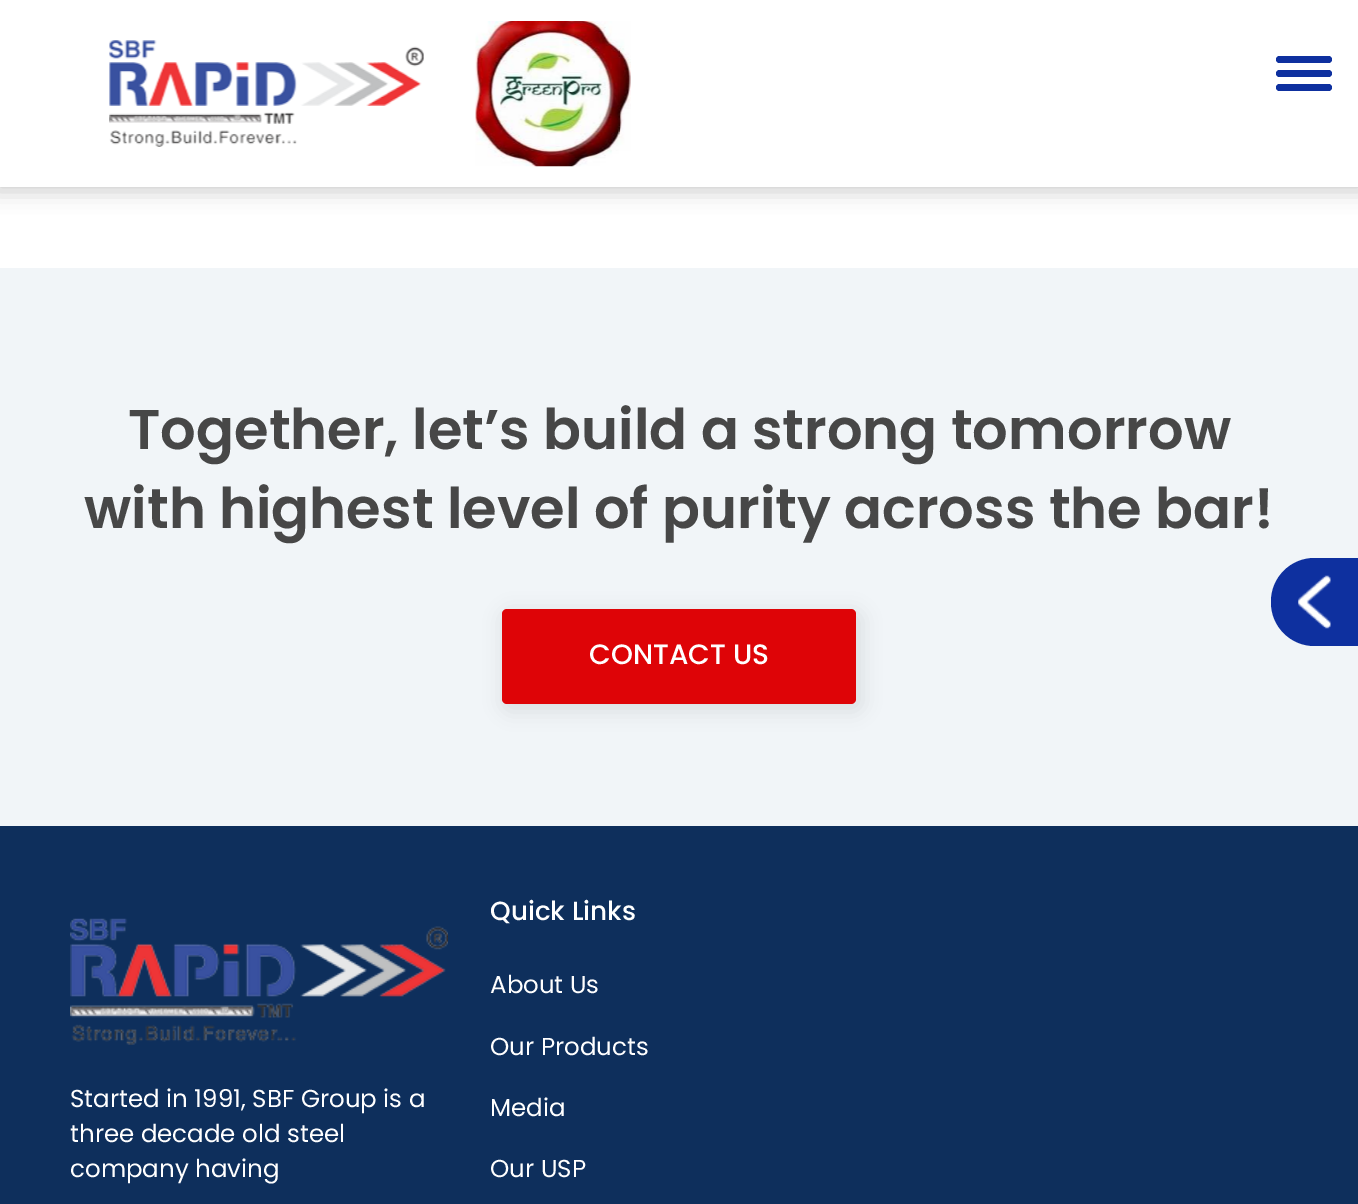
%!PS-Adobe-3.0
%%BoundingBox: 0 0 1358 1204
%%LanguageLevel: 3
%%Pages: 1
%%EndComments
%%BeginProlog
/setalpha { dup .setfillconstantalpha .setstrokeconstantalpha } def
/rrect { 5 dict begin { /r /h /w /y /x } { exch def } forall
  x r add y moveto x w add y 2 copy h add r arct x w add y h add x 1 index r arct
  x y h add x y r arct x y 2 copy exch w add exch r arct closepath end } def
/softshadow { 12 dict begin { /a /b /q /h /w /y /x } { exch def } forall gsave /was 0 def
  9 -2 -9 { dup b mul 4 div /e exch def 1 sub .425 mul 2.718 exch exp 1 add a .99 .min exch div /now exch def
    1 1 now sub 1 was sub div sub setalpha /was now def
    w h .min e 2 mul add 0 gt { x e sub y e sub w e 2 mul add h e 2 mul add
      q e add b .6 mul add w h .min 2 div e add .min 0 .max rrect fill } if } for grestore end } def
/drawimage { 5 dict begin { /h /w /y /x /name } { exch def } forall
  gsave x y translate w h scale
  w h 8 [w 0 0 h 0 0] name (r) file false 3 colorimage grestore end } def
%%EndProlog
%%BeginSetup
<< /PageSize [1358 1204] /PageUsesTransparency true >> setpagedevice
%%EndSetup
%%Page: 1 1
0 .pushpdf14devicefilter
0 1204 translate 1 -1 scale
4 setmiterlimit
1 setgray
0 0 1358 1204 rectfill
0 setgray
-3 -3 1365 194 0 10.5 0.2 softshadow
1 setgray
0 0 1358 187 rectfill
(images/1.raw) 109 40 315 107 drawimage
(images/2.raw) 475 21 156 146 drawimage
0.055 0.188 0.624 setrgbcolor
1276 56 56 7 3.5 rrect fill
1276 70 56 7 3.5 rrect fill
1276 84 56 7 3.5 rrect fill
0.945 0.961 0.973 setrgbcolor
0 268 1358 558 rectfill
0.098 0.098 0.09 setrgbcolor
502 611 361 101 9 9 0.1 softshadow
0.871 0.016 0.027 setrgbcolor
502 609 354 95 5 rrect fill
0.055 0.188 0.624 setrgbcolor
newpath 1314.5 558 moveto 1358 558 lineto 1358 646 lineto 1314.5 646 lineto 1290.5 646 1271 626.5 1271 602.5 curveto 1271 601.5 lineto 1271 577.5 1290.5 558 1314.5 558 curveto closepath fill
(images/3.raw) 1298 575 33 54 drawimage
0.055 0.184 0.361 setrgbcolor
0 826 1358 378 rectfill
(images/4.raw) 70 918 378 127 drawimage
/Poppins-SemiBold [56 0 0 -56 0 0] selectfont
0.278 setgray
128 449 moveto (Together, let’s build a strong tomorrow) show
84 528 moveto (with highest level of purity across the bar!) show
/Poppins-Medium [28 0 0 -28 0 0] selectfont
1 setgray
589 664 moveto (CONTACT US) show
/Poppins-Regular [24.5 0 0 -24.5 0 0] selectfont
70 1107 moveto (Started in 1991, SBF Group is a) show
70 1142 moveto (three decade old steel) show
70 1177 moveto (company having) show
/Poppins-Medium [26.25 0 0 -26.25 0 0] selectfont
490 920 moveto (Quick Links) show
/Poppins-Regular [24.5 0 0 -24.5 0 0] selectfont
490 993 moveto (About Us) show
490 1055 moveto (Our Products) show
490 1116 moveto (Media) show
490 1177 moveto (Our USP) show
.poppdf14devicefilter showpage
%%EOF
